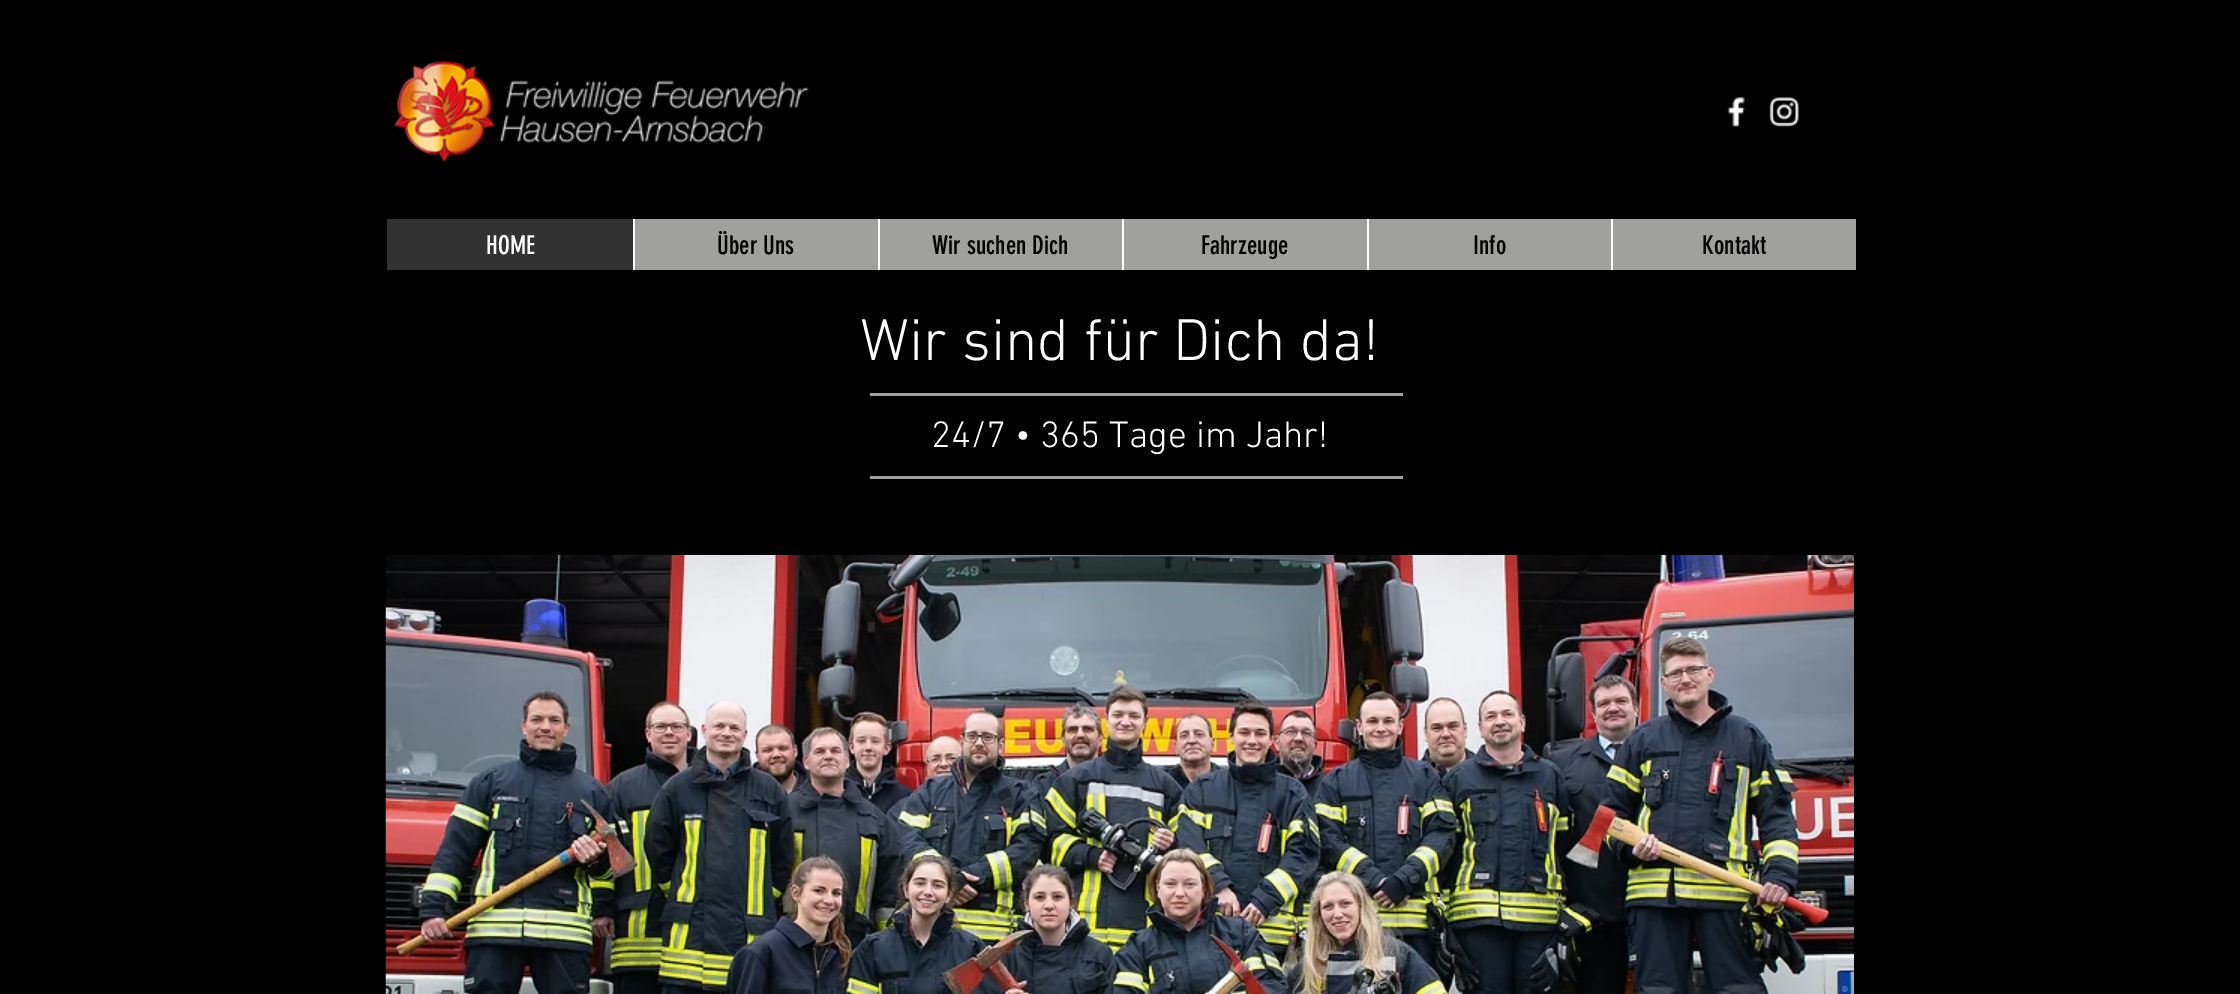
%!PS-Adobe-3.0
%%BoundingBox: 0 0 2240 994
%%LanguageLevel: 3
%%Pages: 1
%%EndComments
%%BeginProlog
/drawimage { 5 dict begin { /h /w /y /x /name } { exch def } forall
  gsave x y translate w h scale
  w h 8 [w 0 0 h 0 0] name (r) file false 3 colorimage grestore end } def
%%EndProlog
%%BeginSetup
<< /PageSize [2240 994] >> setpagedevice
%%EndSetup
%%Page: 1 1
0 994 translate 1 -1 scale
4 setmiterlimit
0 setgray
0 0 2240 994 rectfill
(images/1.raw) 394 60 415 103 drawimage
(images/2.raw) 1727 97 18 30 drawimage
(images/3.raw) 1769 97 30 30 drawimage
0.627 0.627 0.624 setrgbcolor
635 219 1221 51 rectfill
0.196 setgray
387 219 246 51 rectfill
1 setgray
633 219 2 51 rectfill
878 219 2 51 rectfill
1122 219 2 51 rectfill
1367 219 2 51 rectfill
1611 219 2 51 rectfill
0.627 0.627 0.624 setrgbcolor
870 393 533 3 rectfill
870 476 533 3 rectfill
(images/4.raw) 385 555 1469 439 drawimage
/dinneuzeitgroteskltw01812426-Regular [25.5 0 0 -25.5 0 0] selectfont
1 setgray
486 254 moveto (HOME) show
0 setgray
717 254 moveto (Über Uns) show
932 254 moveto (Wir suchen Dich) show
1201 254 moveto (Fahrzeuge) show
1473 254 moveto (Info) show
1702 254 moveto (Kontakt) show
/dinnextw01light-Light [60 0 0 -60 0 0] selectfont
1 setgray
860 360 moveto (Wir sind für Dich da!) show
/dinnextw01light-Light [37.5 0 0 -37.5 0 0] selectfont
931 447 moveto (24/7 • 365 Tage im Jahr!) show
showpage
%%EOF
